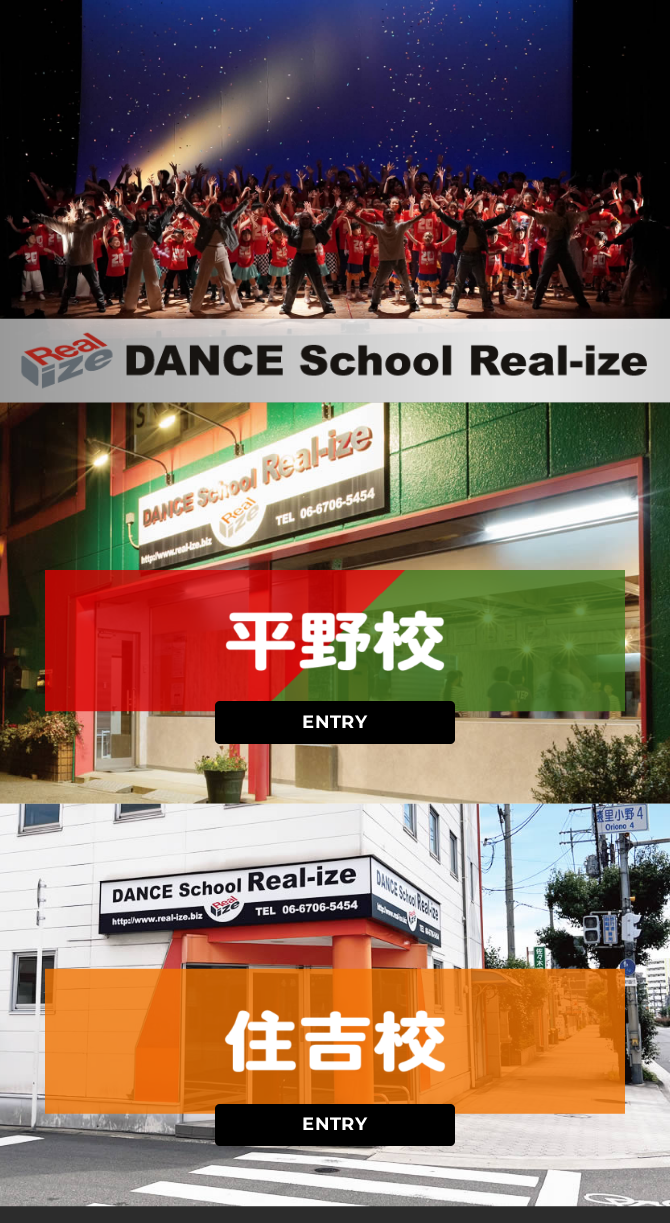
%!PS-Adobe-3.0
%%BoundingBox: 0 0 670 1223
%%LanguageLevel: 3
%%Pages: 1
%%EndComments
%%BeginProlog
/rrect { 5 dict begin { /r /h /w /y /x } { exch def } forall
  x r add y moveto x w add y 2 copy h add r arct x w add y h add x 1 index r arct
  x y h add x y r arct x y 2 copy exch w add exch r arct closepath end } def
/drawimage { 5 dict begin { /h /w /y /x /name } { exch def } forall
  gsave x y translate w h scale
  w h 8 [w 0 0 h 0 0] name (r) file false 3 colorimage grestore end } def
%%EndProlog
%%BeginSetup
<< /PageSize [670 1223] >> setpagedevice
%%EndSetup
%%Page: 1 1
0 1223 translate 1 -1 scale
4 setmiterlimit
1 setgray
0 0 670 1223 rectfill
(images/1.raw) 0 0 670 403 drawimage
(images/2.raw) 0 318 670 85 drawimage
(images/3.raw) 21 332 626 57 drawimage
(images/4.raw) 0 402 670 402 drawimage
(images/5.raw) 45 570 580 142 drawimage
0 setgray
215 701 240 43 5 rrect fill
0.173 setgray
0 1206 670 17 rectfill
(images/6.raw) 0 803 670 404 drawimage
(images/7.raw) 45 968 580 146 drawimage
0 setgray
215 1104 240 42 5 rrect fill
/Montserrat-Bold [18 0 0 -18 0 0] selectfont
1 setgray
302 728 moveto 0.5 0 (ENTRY) ashow
302 1130 moveto 0.5 0 (ENTRY) ashow
showpage
%%EOF
